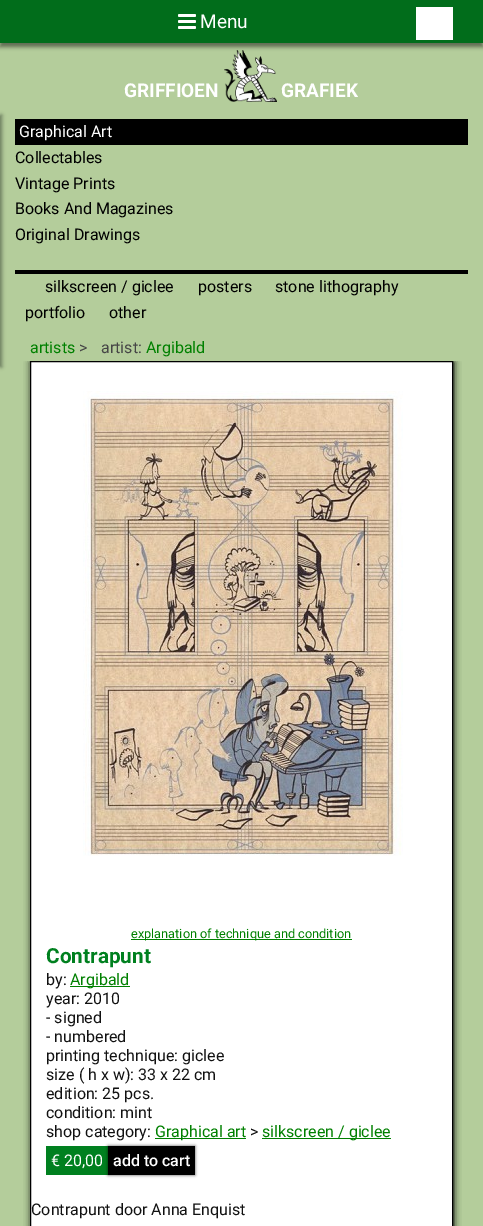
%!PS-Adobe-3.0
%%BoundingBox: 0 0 483 1226
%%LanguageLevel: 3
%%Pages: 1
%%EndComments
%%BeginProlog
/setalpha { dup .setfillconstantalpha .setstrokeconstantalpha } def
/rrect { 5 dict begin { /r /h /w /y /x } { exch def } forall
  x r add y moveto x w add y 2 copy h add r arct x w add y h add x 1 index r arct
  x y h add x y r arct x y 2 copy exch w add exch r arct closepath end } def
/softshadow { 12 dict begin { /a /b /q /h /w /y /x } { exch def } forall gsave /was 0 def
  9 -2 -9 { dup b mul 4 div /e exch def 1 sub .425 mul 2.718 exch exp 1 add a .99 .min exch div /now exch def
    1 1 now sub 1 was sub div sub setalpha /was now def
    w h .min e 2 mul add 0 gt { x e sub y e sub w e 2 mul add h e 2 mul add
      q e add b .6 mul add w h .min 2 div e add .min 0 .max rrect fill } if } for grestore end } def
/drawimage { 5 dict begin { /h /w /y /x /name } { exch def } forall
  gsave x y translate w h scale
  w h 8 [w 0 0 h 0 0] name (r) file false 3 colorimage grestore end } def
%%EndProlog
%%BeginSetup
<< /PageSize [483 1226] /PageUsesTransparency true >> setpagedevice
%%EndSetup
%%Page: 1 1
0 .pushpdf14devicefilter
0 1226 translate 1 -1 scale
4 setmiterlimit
0.706 0.804 0.608 setrgbcolor
0 0 483 1226 rectfill
(images/1.raw) 224 50 53 52 drawimage
0.039 setgray
0 4 483 43 0 2 0.5 softshadow
0.004 0.427 0.106 setrgbcolor
0 0 483 43 rectfill
1 setgray
178 14 18 3 1.5 rrect fill
178 20 18 3 1.5 rrect fill
178 26 18 3 1.5 rrect fill
416 7 37 33 rectfill
0 setgray
-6 115 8 252 0 2 0.4 softshadow
15 270 453 4 rectfill
15 119 453 26 rectfill
gsave
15 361 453 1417 rectclip
31 362 423 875 0 3.5 1 softshadow
grestore
1 setgray
newpath 30.5 361.5 moveto 452.5 361.5 lineto 452.5 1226.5 lineto 30.5 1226.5 lineto closepath gsave fill grestore
0 setgray
stroke
(images/2.raw) 83 391 320 465 drawimage
0 0.502 0 setrgbcolor
131 939 221 1 rectfill
70 986 60 1 rectfill
155 1138 91 1 rectfill
262 1138 129 1 rectfill
0 0.502 0.122 setrgbcolor
46 1146 62 29 rectfill
0 setgray
108 1146 87 29 0 1.5 0.65 softshadow
108 1146 87 29 rectfill
/Roboto-Regular [19 0 0 -19 0 0] selectfont
1 setgray
200 28 moveto (Menu) show
/Roboto-Bold [19 0 0 -19 0 0] selectfont
124 97 moveto (GRIFFIOEN) show
281 97 moveto (GRAFIEK) show
/Roboto-Regular [16 0 0 -16 0 0] selectfont
19 137 moveto (Graphical Art) show
0 setgray
15 163 moveto (Collectables) show
15 189 moveto (Vintage Prints) show
15 214 moveto (Books And Magazines) show
15 240 moveto (Original Drawings) show
45 292 moveto (silkscreen / giclee) show
198 292 moveto (posters) show
275 292 moveto (stone lithography) show
25 318 moveto (portfolio) show
109 318 moveto (other) show
0 0.502 0 setrgbcolor
30 353 moveto (artists) show
0.275 setgray
79 353 moveto (>) show
101 353 moveto (artist:) show
0 0.502 0 setrgbcolor
146 353 moveto (Argibald) show
/Roboto-Regular [12.75 0 0 -12.75 0 0] selectfont
131 938 moveto (explanation of technique and condition) show
/Roboto-Bold [20.75 0 0 -20.75 0 0] selectfont
0 0.502 0.122 setrgbcolor
46 963 moveto (Contrapunt) show
/Roboto-Regular [16 0 0 -16 0 0] selectfont
0.067 setgray
46 985 moveto (by:) show
0 0.502 0 setrgbcolor
70 985 moveto (Argibald) show
0.067 setgray
46 1004 moveto (year: 2010) show
46 1023 moveto (- signed) show
46 1042 moveto (- numbered) show
46 1061 moveto (printing technique: giclee) show
46 1080 moveto (size \( h x w\): 33 x 22 cm) show
46 1099 moveto (edition: 25 pcs.) show
46 1118 moveto (condition: mint) show
46 1137 moveto (shop category:) show
0 0.502 0 setrgbcolor
155 1137 moveto (Graphical art) show
0.067 setgray
250 1137 moveto (>) show
0 0.502 0 setrgbcolor
262 1137 moveto (silkscreen / giclee) show
1 setgray
51 1166 moveto (€ 20,00) show
/Roboto-Medium [16 0 0 -16 0 0] selectfont
113 1166 moveto (add to cart) show
/Roboto-Regular [16 0 0 -16 0 0] selectfont
0.067 setgray
31 1215 moveto (Contrapunt door Anna Enquist) show
.poppdf14devicefilter showpage
%%EOF
